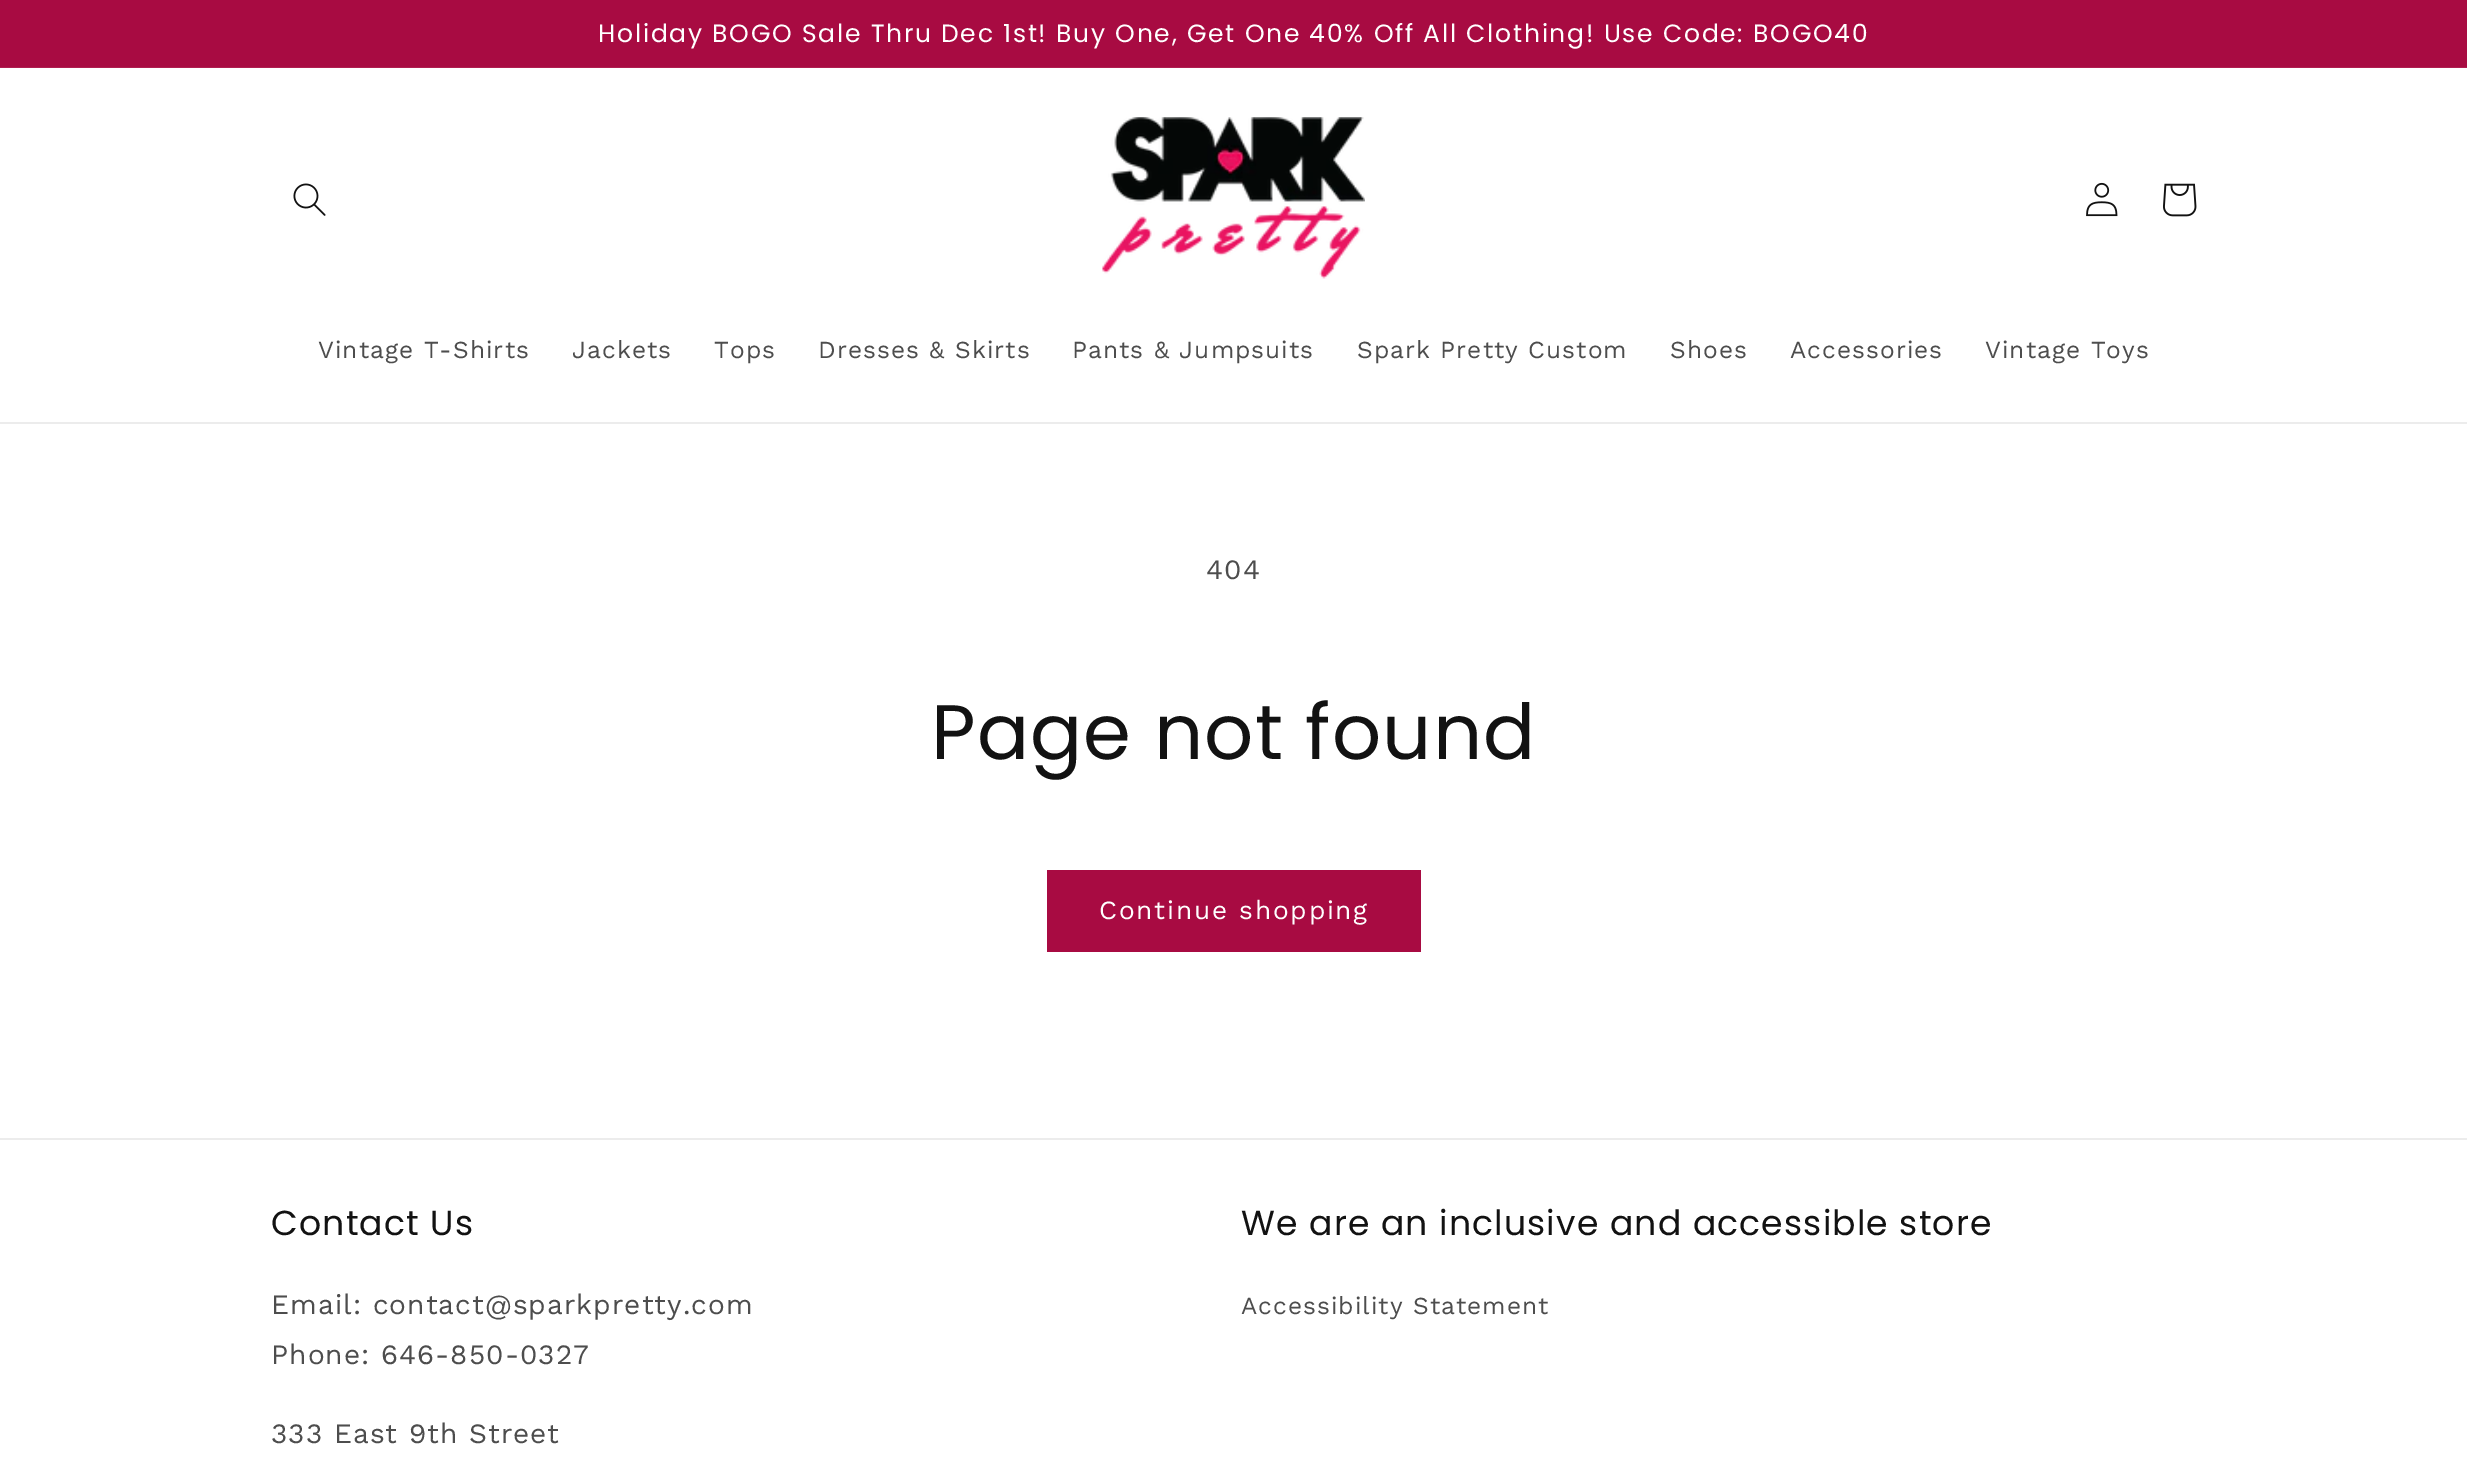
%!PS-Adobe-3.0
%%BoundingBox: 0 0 2467 1475
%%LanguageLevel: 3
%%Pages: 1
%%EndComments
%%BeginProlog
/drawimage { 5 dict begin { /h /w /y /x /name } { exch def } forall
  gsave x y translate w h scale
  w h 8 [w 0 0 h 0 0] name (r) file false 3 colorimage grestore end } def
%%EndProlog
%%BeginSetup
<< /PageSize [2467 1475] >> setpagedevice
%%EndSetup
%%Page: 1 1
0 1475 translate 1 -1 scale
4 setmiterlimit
1 setgray
0 0 2467 1475 rectfill
0.659 0.043 0.259 setrgbcolor
0 0 2467 67 rectfill
0.686 0.122 0.318 setrgbcolor
0 67 2467 1 rectfill
0.925 setgray
0 422 2467 2 rectfill
(images/1.raw) 293 183 33 33 drawimage
(images/2.raw) 1102 117 263 162 drawimage
(images/3.raw) 2086 182 32 35 drawimage
(images/4.raw) 2163 183 34 34 drawimage
0.659 0.043 0.259 setrgbcolor
1047 870 374 82 rectfill
0.925 setgray
0 1138 2467 2 rectfill
/Poppins-Regular [25.03 0 0 -25.03 0 0] selectfont
1 setgray
598 42 moveto 1.75 0 (Holiday BOGO Sale Thru Dec 1st! Buy One, Get One 40% Off All Clothing! Use Code: BOGO40) ashow
/WorkSans-Regular [24.5 0 0 -24.5 0 0] selectfont
0.302 setgray
318 358 moveto 1.05 0 (Vintage T-Shirts) ashow
572 358 moveto 1.05 0 (Jackets) ashow
714 358 moveto 1.05 0 (Tops) ashow
818 358 moveto 1.05 0 (Dresses & Skirts) ashow
1072 358 moveto 1.05 0 (Pants & Jumpsuits) ashow
1357 358 moveto 1.05 0 (Spark Pretty Custom) ashow
1670 358 moveto 1.05 0 (Shoes) ashow
1790 358 moveto 1.05 0 (Accessories) ashow
1985 358 moveto 1.05 0 (Vintage Toys) ashow
/WorkSans-Regular [28 0 0 -28 0 0] selectfont
1206 579 moveto 1.05 0 (404) ashow
/Poppins-Regular [77 0 0 -77 0 0] selectfont
0.071 setgray
931 759 moveto 1.15 0 (Page not found) ashow
/WorkSans-Regular [26.25 0 0 -26.25 0 0] selectfont
1 setgray
1099 919 moveto 1.75 0 (Continue shopping) ashow
/Poppins-Regular [34.65 0 0 -34.65 0 0] selectfont
0.071 setgray
271 1235 moveto 1.15 0 (Contact Us) ashow
/WorkSans-Regular [28 0 0 -28 0 0] selectfont
0.302 setgray
271 1314 moveto 1.05 0 (Email: contact@sparkpretty.com) ashow
271 1364 moveto 1.05 0 (Phone: 646-850-0327) ashow
271 1443 moveto 1.05 0 (333 East 9th Street) ashow
/Poppins-Regular [34.65 0 0 -34.65 0 0] selectfont
0.071 setgray
1241 1235 moveto 1.15 0 (We are an inclusive and accessible store) ashow
/WorkSans-Regular [24.5 0 0 -24.5 0 0] selectfont
0.302 setgray
1241 1314 moveto 1.05 0 (Accessibility Statement) ashow
showpage
%%EOF
